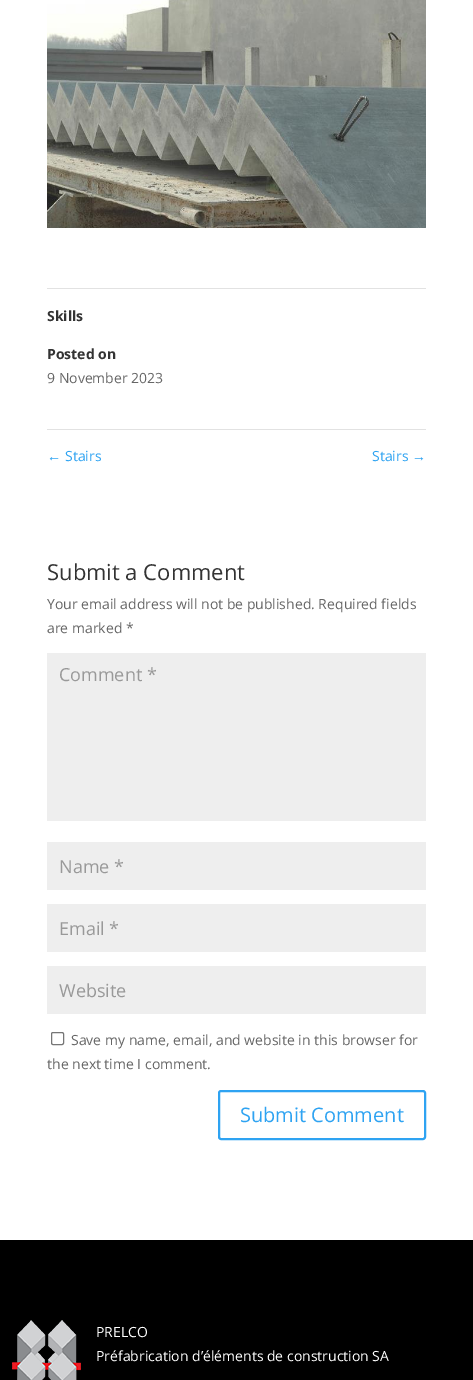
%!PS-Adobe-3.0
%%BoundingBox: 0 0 473 1380
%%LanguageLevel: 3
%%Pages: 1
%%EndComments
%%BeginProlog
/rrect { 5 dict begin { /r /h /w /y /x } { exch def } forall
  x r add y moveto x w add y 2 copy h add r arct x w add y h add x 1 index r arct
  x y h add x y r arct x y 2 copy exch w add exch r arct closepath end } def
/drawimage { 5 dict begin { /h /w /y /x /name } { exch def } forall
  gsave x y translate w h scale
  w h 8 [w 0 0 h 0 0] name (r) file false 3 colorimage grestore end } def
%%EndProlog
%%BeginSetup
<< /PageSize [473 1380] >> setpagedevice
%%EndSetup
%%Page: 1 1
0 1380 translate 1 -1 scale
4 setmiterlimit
0 setgray
0 0 473 1380 rectfill
1 setgray
0 0 473 1240 rectfill
(images/1.raw) 47 0 379 228 drawimage
0.886 setgray
47 288 379 1 rectfill
47 429 379 1 rectfill
0.933 setgray
47 653 379 168 rectfill
47 842 379 48 rectfill
47 904 379 48 rectfill
47 966 379 48 rectfill
0.463 setgray
51.5 1032.5 12 12 1.5 rrect stroke
0.18 0.639 0.949 setrgbcolor
2 setlinewidth
219 1091 206 48 2 rrect stroke
(images/2.raw) 12 1320 69 60 drawimage
/OpenSans-Bold [14 0 0 -14 0 0] selectfont
0.2 setgray
47 321 moveto (Skills) show
47 359 moveto (Posted on) show
/OpenSans-Regular [14 0 0 -14 0 0] selectfont
0.4 setgray
47 383 moveto (9 November 2023) show
/LiberationSans-Regular [14 0 0 -14 0 0] selectfont
0.18 0.639 0.949 setrgbcolor
47 461 moveto (←) show
/OpenSans-Regular [14 0 0 -14 0 0] selectfont
65 461 moveto (Stairs) show
372 461 moveto (Stairs) show
/LiberationSans-Regular [14 0 0 -14 0 0] selectfont
412 461 moveto (→) show
/OpenSans-Regular [22 0 0 -22 0 0] selectfont
0.2 setgray
47 580 moveto (Submit a Comment) show
/OpenSans-Regular [14 0 0 -14 0 0] selectfont
0.4 setgray
47 609 moveto (Your email address will not be published. Required fields) show
47 633 moveto (are marked *) show
/OpenSans-Regular [18 0 0 -18 0 0] selectfont
0.6 setgray
59 681 moveto (Comment *) show
59 873 moveto (Name *) show
59 935 moveto (Email *) show
59 997 moveto (Website) show
/OpenSans-Regular [14 0 0 -14 0 0] selectfont
0.4 setgray
71 1045 moveto (Save my name, email, and website in this browser for) show
47 1069 moveto (the next time I comment.) show
/OpenSans-Regular [20 0 0 -20 0 0] selectfont
0.18 0.639 0.949 setrgbcolor
240 1122 moveto (Submit Comment) show
/OpenSans-Regular [14 0 0 -14 0 0] selectfont
1 setgray
96 1337 moveto (PRELCO) show
96 1361 moveto (Préfabrication d’éléments de construction SA) show
showpage
%%EOF
